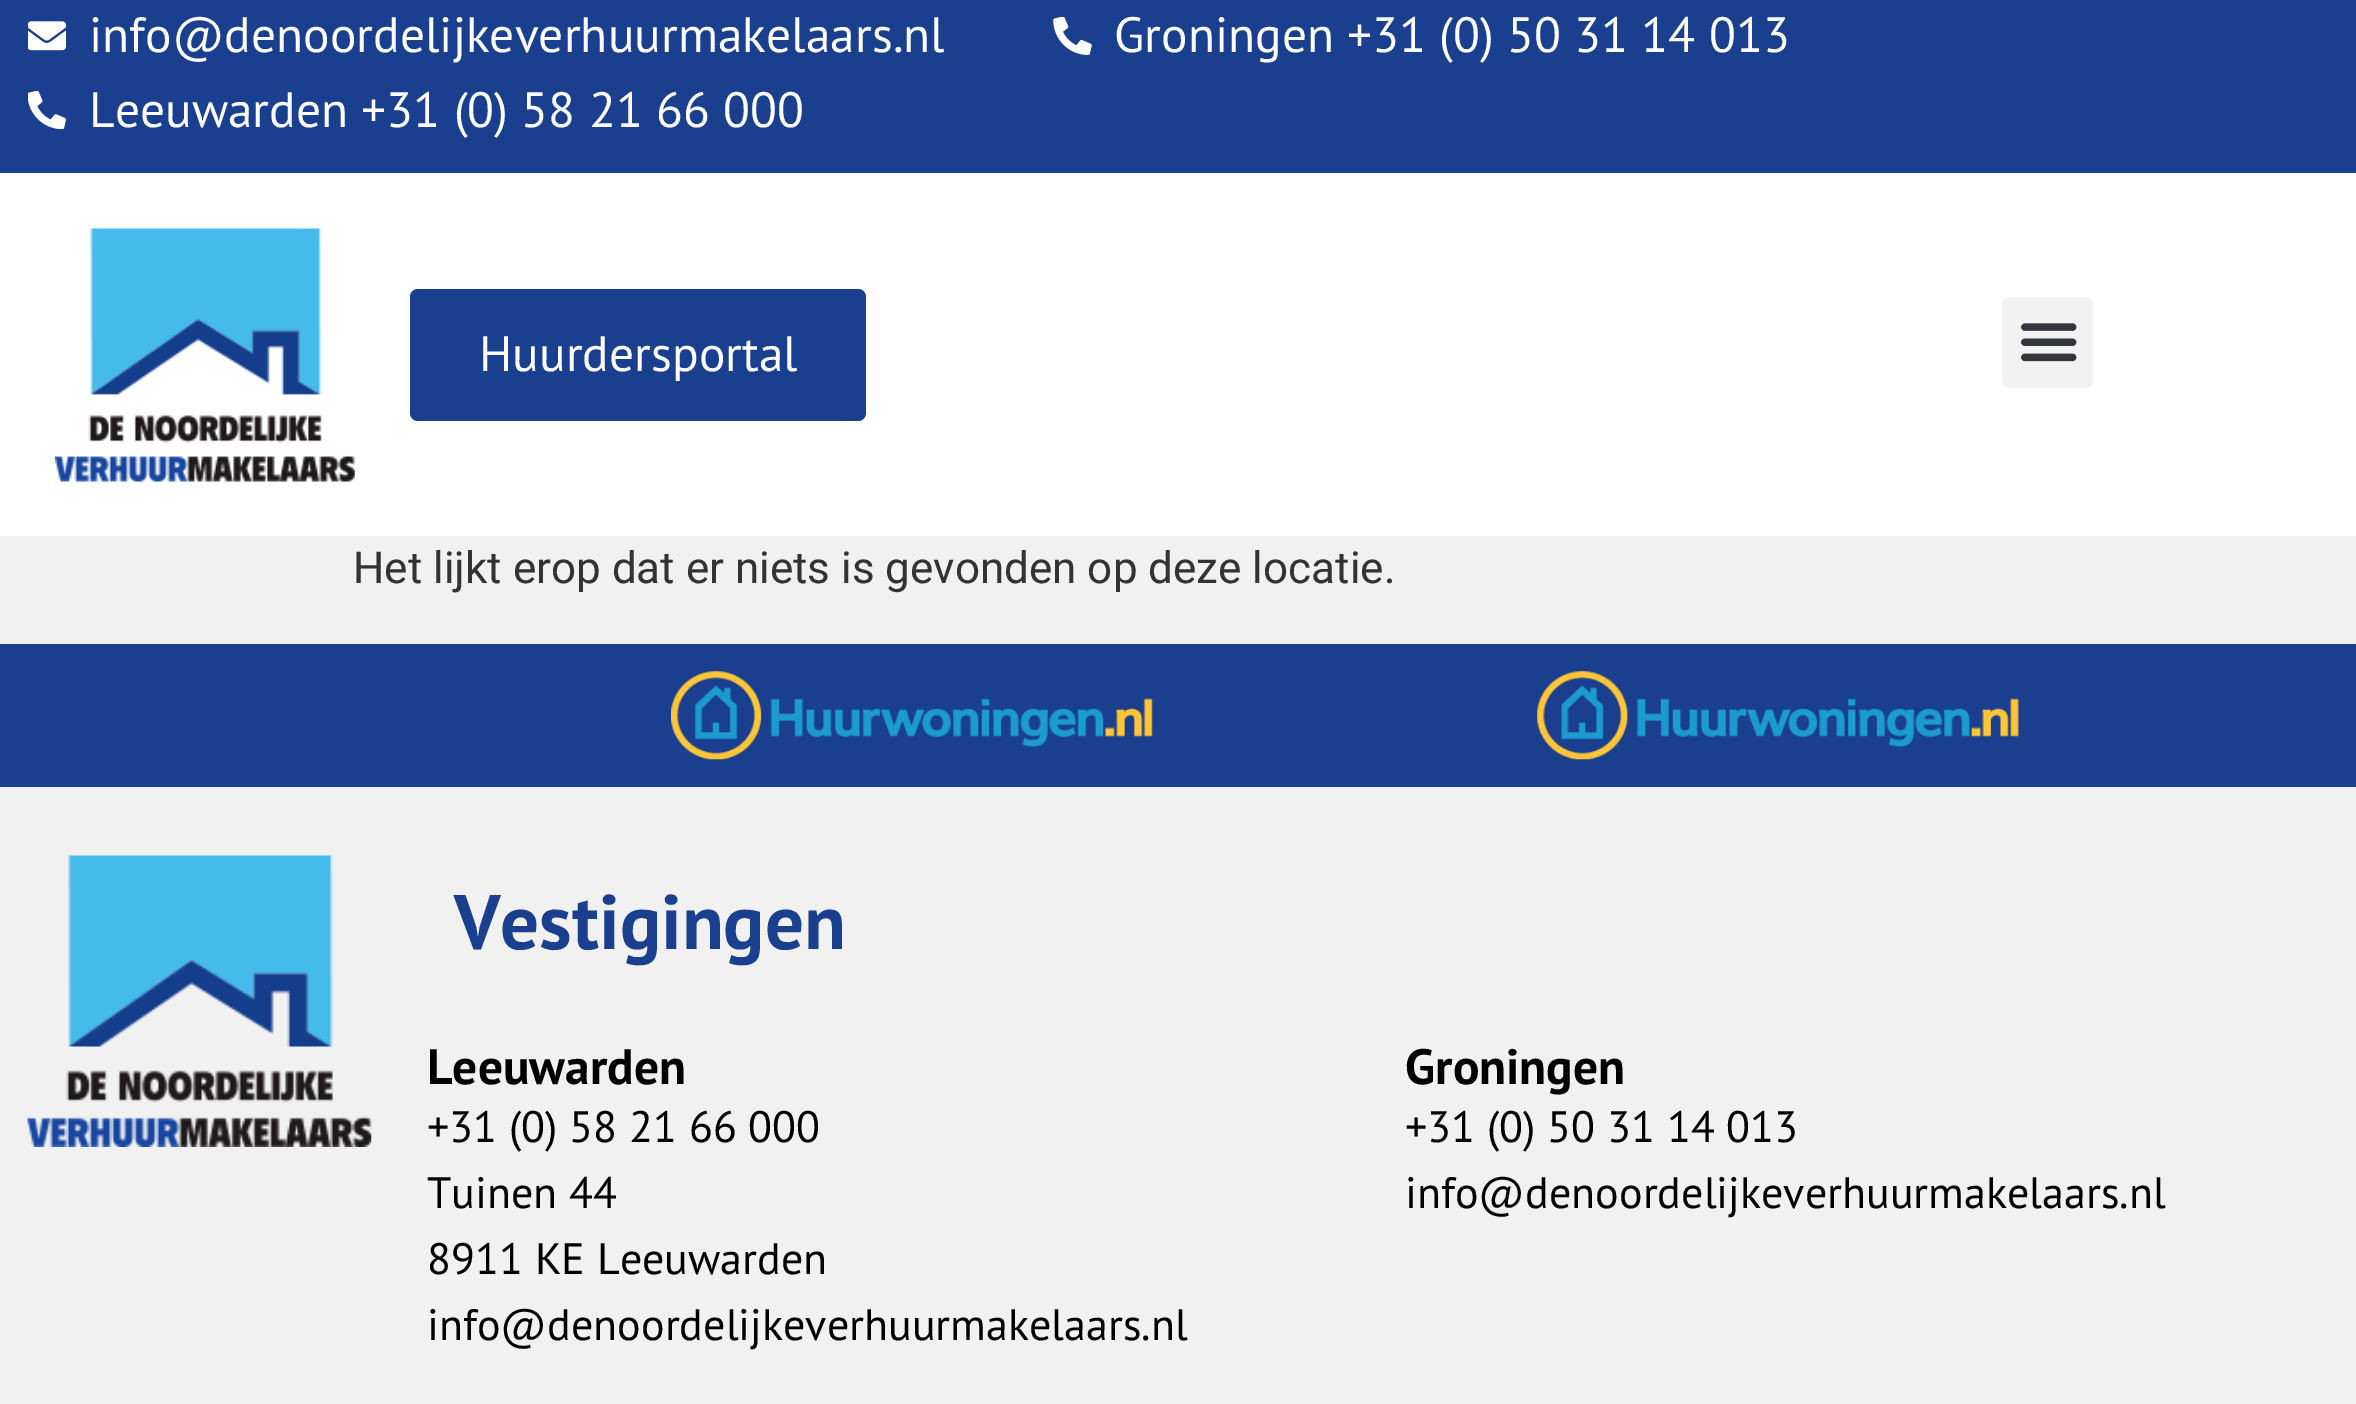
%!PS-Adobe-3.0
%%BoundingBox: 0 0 2356 1404
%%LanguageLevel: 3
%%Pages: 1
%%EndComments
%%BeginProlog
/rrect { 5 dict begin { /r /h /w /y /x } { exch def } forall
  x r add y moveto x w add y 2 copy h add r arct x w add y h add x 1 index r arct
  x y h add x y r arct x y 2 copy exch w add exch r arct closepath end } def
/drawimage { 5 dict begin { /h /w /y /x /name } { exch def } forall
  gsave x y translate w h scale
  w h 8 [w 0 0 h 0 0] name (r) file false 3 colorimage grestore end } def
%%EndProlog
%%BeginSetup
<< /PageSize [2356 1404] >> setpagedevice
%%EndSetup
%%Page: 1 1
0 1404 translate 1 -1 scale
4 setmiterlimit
0.945 setgray
0 0 2356 1404 rectfill
0.102 0.247 0.561 setrgbcolor
0 0 2356 173 rectfill
(images/1.raw) 28 21 38 30 drawimage
(images/2.raw) 1053 17 39 38 drawimage
(images/3.raw) 28 91 38 38 drawimage
1 setgray
0 173 2356 363 rectfill
(images/4.raw) 55 228 300 254 drawimage
0.102 0.247 0.561 setrgbcolor
410 289 456 132 8 rrect fill
0.949 setgray
2002 297 91 91 8 rrect fill
(images/5.raw) 2021 323 56 39 drawimage
0.102 0.247 0.561 setrgbcolor
0 644 2356 143 rectfill
(images/6.raw) 671 671 482 89 drawimage
(images/7.raw) 1537 671 482 89 drawimage
(images/8.raw) 27 855 345 292 drawimage
/PTSans-Regular [49.5 0 0 -49.5 0 0] selectfont
1 setgray
89 52 moveto (info@denoordelijkeverhuurmakelaars.nl) show
1114 52 moveto (Groningen +31 \(0\) 50 31 14 013) show
89 127 moveto (Leeuwarden +31 \(0\) 58 21 66 000) show
479 371 moveto (Huurdersportal) show
/Roboto-Regular [44 0 0 -44 0 0] selectfont
0.2 setgray
353 583 moveto (Het lijkt erop dat er niets is gevonden op deze locatie.) show
/PTSans-Bold [77 0 0 -77 0 0] selectfont
0.102 0.247 0.561 setrgbcolor
454 949 moveto (Vestigingen) show
/PTSans-Bold [49.5 0 0 -49.5 0 0] selectfont
0 setgray
427 1084 moveto (Leeuwarden) show
/PTSans-Regular [44 0 0 -44 0 0] selectfont
427 1142 moveto (+31 \(0\) 58 21 66 000) show
427 1208 moveto (Tuinen 44) show
427 1274 moveto (8911 KE Leeuwarden) show
427 1340 moveto (info@denoordelijkeverhuurmakelaars.nl) show
/PTSans-Bold [49.5 0 0 -49.5 0 0] selectfont
1405 1084 moveto (Groningen) show
/PTSans-Regular [44 0 0 -44 0 0] selectfont
1405 1142 moveto (+31 \(0\) 50 31 14 013) show
1405 1208 moveto (info@denoordelijkeverhuurmakelaars.nl) show
showpage
%%EOF
